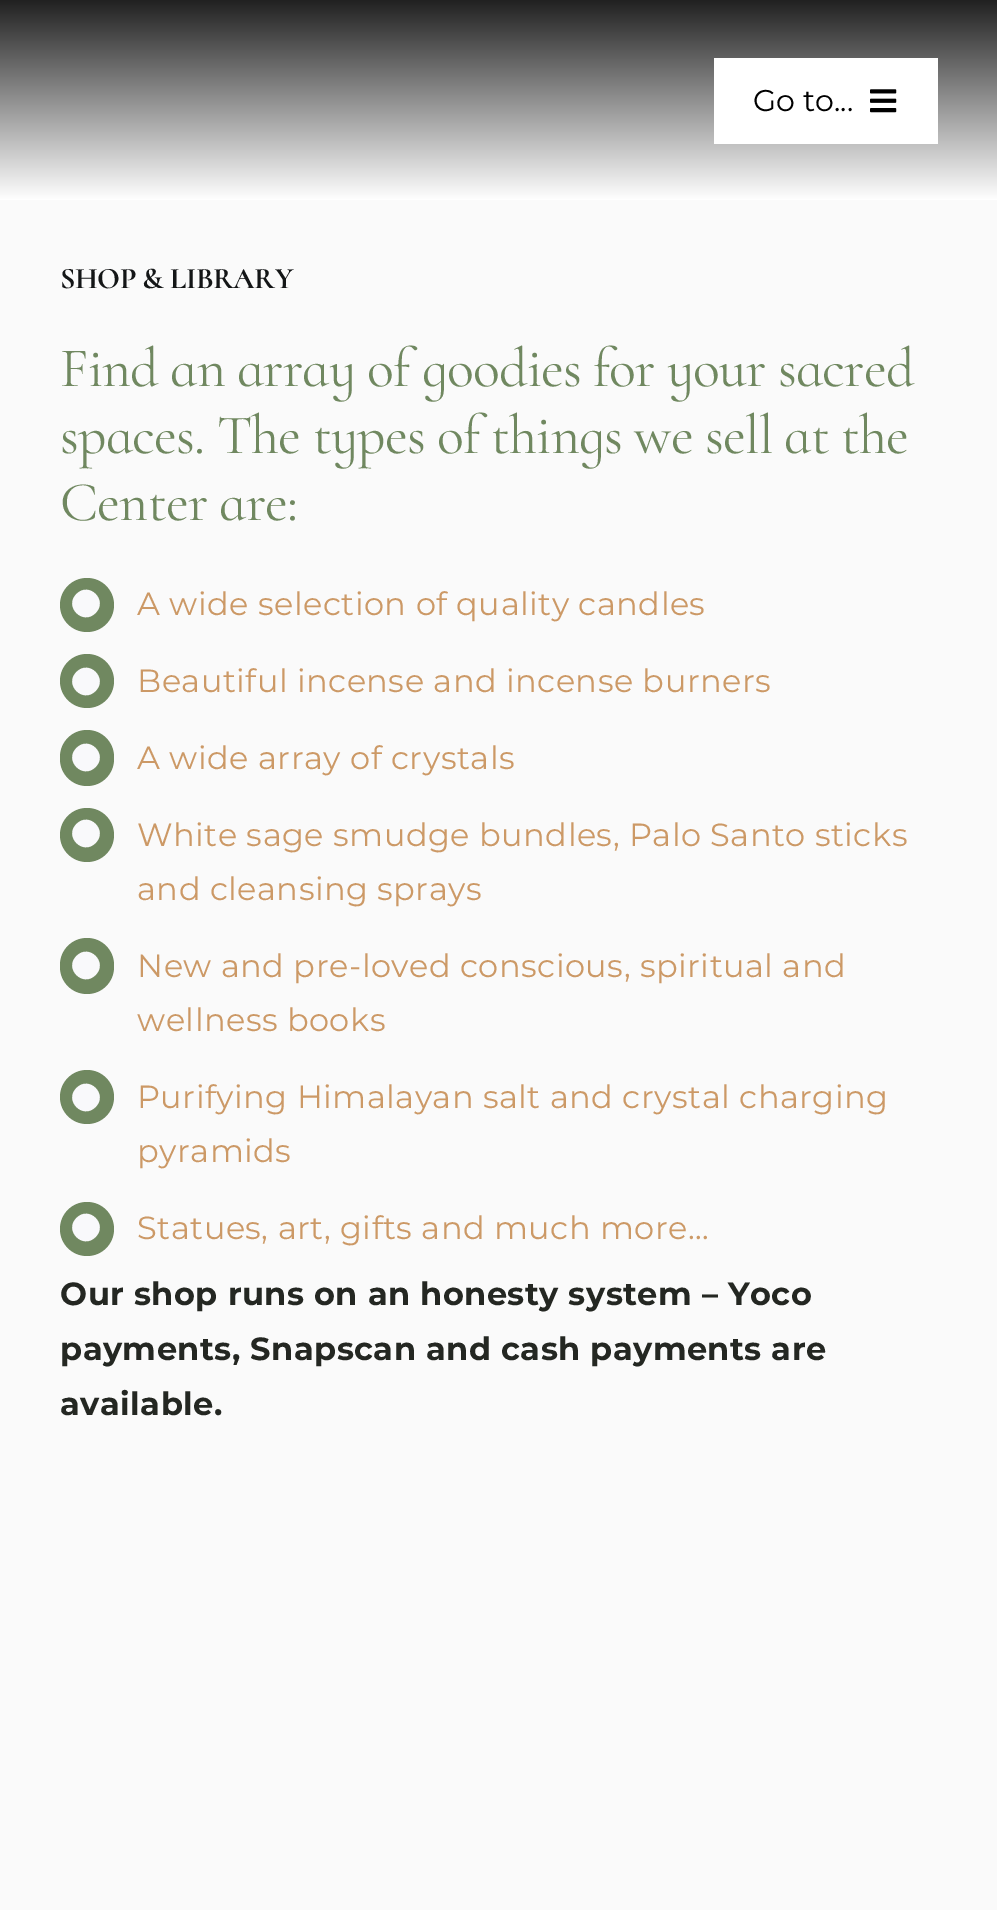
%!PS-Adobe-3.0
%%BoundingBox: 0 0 997 1910
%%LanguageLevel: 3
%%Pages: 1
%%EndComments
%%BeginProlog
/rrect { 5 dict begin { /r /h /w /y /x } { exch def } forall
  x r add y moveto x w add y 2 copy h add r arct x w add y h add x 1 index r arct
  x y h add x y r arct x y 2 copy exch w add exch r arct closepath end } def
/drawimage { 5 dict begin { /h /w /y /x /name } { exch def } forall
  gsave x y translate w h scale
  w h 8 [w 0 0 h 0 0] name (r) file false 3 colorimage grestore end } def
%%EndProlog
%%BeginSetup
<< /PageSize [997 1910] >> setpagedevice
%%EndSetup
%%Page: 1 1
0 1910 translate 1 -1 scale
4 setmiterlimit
0.98 setgray
0 0 997 1910 rectfill
gsave newpath 0 0 moveto 997 0 lineto 997 200 lineto 0 200 lineto closepath clip newpath
<< /ShadingType 2 /ColorSpace /DeviceRGB /Coords [499 0 499 200] /Extend [true true] /Function << /FunctionType 2 /Domain [0 1] /C0 [0.129 0.129 0.129] /C1 [1 1 1] /N 1 >> >> shfill grestore
1 setgray
714 58 224 86 rectfill
(images/1.raw) 870 89 27 24 drawimage
0.439 0.533 0.376 setrgbcolor
newpath 87 605 27 0 360 arc closepath fill
0.976 0.976 0.984 setrgbcolor
newpath 76.5 594 moveto 89 581 108.5 600.5 95.5 613 curveto 83 626 63.5 606.5 76.5 594 curveto closepath fill
0.439 0.533 0.376 setrgbcolor
newpath 87 681 27 0 360 arc closepath fill
0.976 0.976 0.984 setrgbcolor
newpath 76.5 672 moveto 89 659 108.5 678.5 95.5 691 curveto 83 704 63.5 684.5 76.5 672 curveto closepath fill
0.439 0.533 0.376 setrgbcolor
60 730 54 56 27 rrect fill
0.976 0.976 0.984 setrgbcolor
newpath 76.5 748 moveto 89 735 108.5 754.5 95.5 767 curveto 83 780 63.5 760.5 76.5 748 curveto closepath fill
0.439 0.533 0.376 setrgbcolor
newpath 87 835 27 0 360 arc closepath fill
0.976 0.976 0.984 setrgbcolor
newpath 76.5 824 moveto 89 811 108.5 830.5 95.5 843 curveto 83 856 63.5 836.5 76.5 824 curveto closepath fill
0.439 0.533 0.376 setrgbcolor
60 938 54 56 27 rrect fill
0.976 0.976 0.984 setrgbcolor
newpath 76.5 956 moveto 89 943 108.5 962.5 95.5 975 curveto 83 988 63.5 968.5 76.5 956 curveto closepath fill
0.439 0.533 0.376 setrgbcolor
newpath 87 1097 27 0 360 arc closepath fill
0.976 0.976 0.984 setrgbcolor
newpath 76.5 1088 moveto 89 1075 108.5 1094.5 95.5 1107 curveto 83 1120 63.5 1100.5 76.5 1088 curveto closepath fill
0.439 0.533 0.376 setrgbcolor
newpath 87 1229 27 0 360 arc closepath fill
0.976 0.976 0.984 setrgbcolor
newpath 76.5 1218 moveto 89 1205 108.5 1224.5 95.5 1237 curveto 83 1250 63.5 1230.5 76.5 1218 curveto closepath fill
/Montserrat-Regular [30 0 0 -30 0 0] selectfont
0 setgray
753 111 moveto (Go to...) show
/Cormorant-Bold [30 0 0 -30 0 0] selectfont
0.078 0.086 0.09 setrgbcolor
60 288 moveto -0.5 0 (SHOP & LIBRARY) ashow
/CormorantInfant-Light [55.9 0 0 -55.9 0 0] selectfont
0.439 0.533 0.376 setrgbcolor
60 386 moveto -0.85 0 (Find an array of goodies for your sacred) ashow
60 453 moveto -0.85 0 (spaces. The types of things we sell at the) ashow
60 520 moveto -0.85 0 (Center are:) ashow
/Montserrat-Regular [32 0 0 -32 0 0] selectfont
0.8 0.6 0.4 setrgbcolor
137 615 moveto 0.5 0 (A wide selection of quality candles) ashow
137 692 moveto 0.5 0 (Beautiful incense and incense burners) ashow
137 769 moveto 0.5 0 (A wide array of crystals) ashow
137 846 moveto 0.5 0 (White sage smudge bundles, Palo Santo sticks) ashow
137 900 moveto 0.5 0 (and cleansing sprays) ashow
137 977 moveto 0.5 0 (New and pre-loved conscious, spiritual and) ashow
137 1031 moveto 0.5 0 (wellness books) ashow
137 1108 moveto 0.5 0 (Purifying Himalayan salt and crystal charging) ashow
137 1162 moveto 0.5 0 (pyramids) ashow
137 1239 moveto 0.5 0 (Statues, art, gifts and much more…) ashow
/Montserrat-Bold [32 0 0 -32 0 0] selectfont
0.141 0.153 0.133 setrgbcolor
60 1305 moveto 0.5 0 (Our shop runs on an honesty system – Yoco) ashow
60 1360 moveto 0.5 0 (payments, Snapscan and cash payments are) ashow
60 1415 moveto 0.5 0 (available.) ashow
showpage
%%EOF
